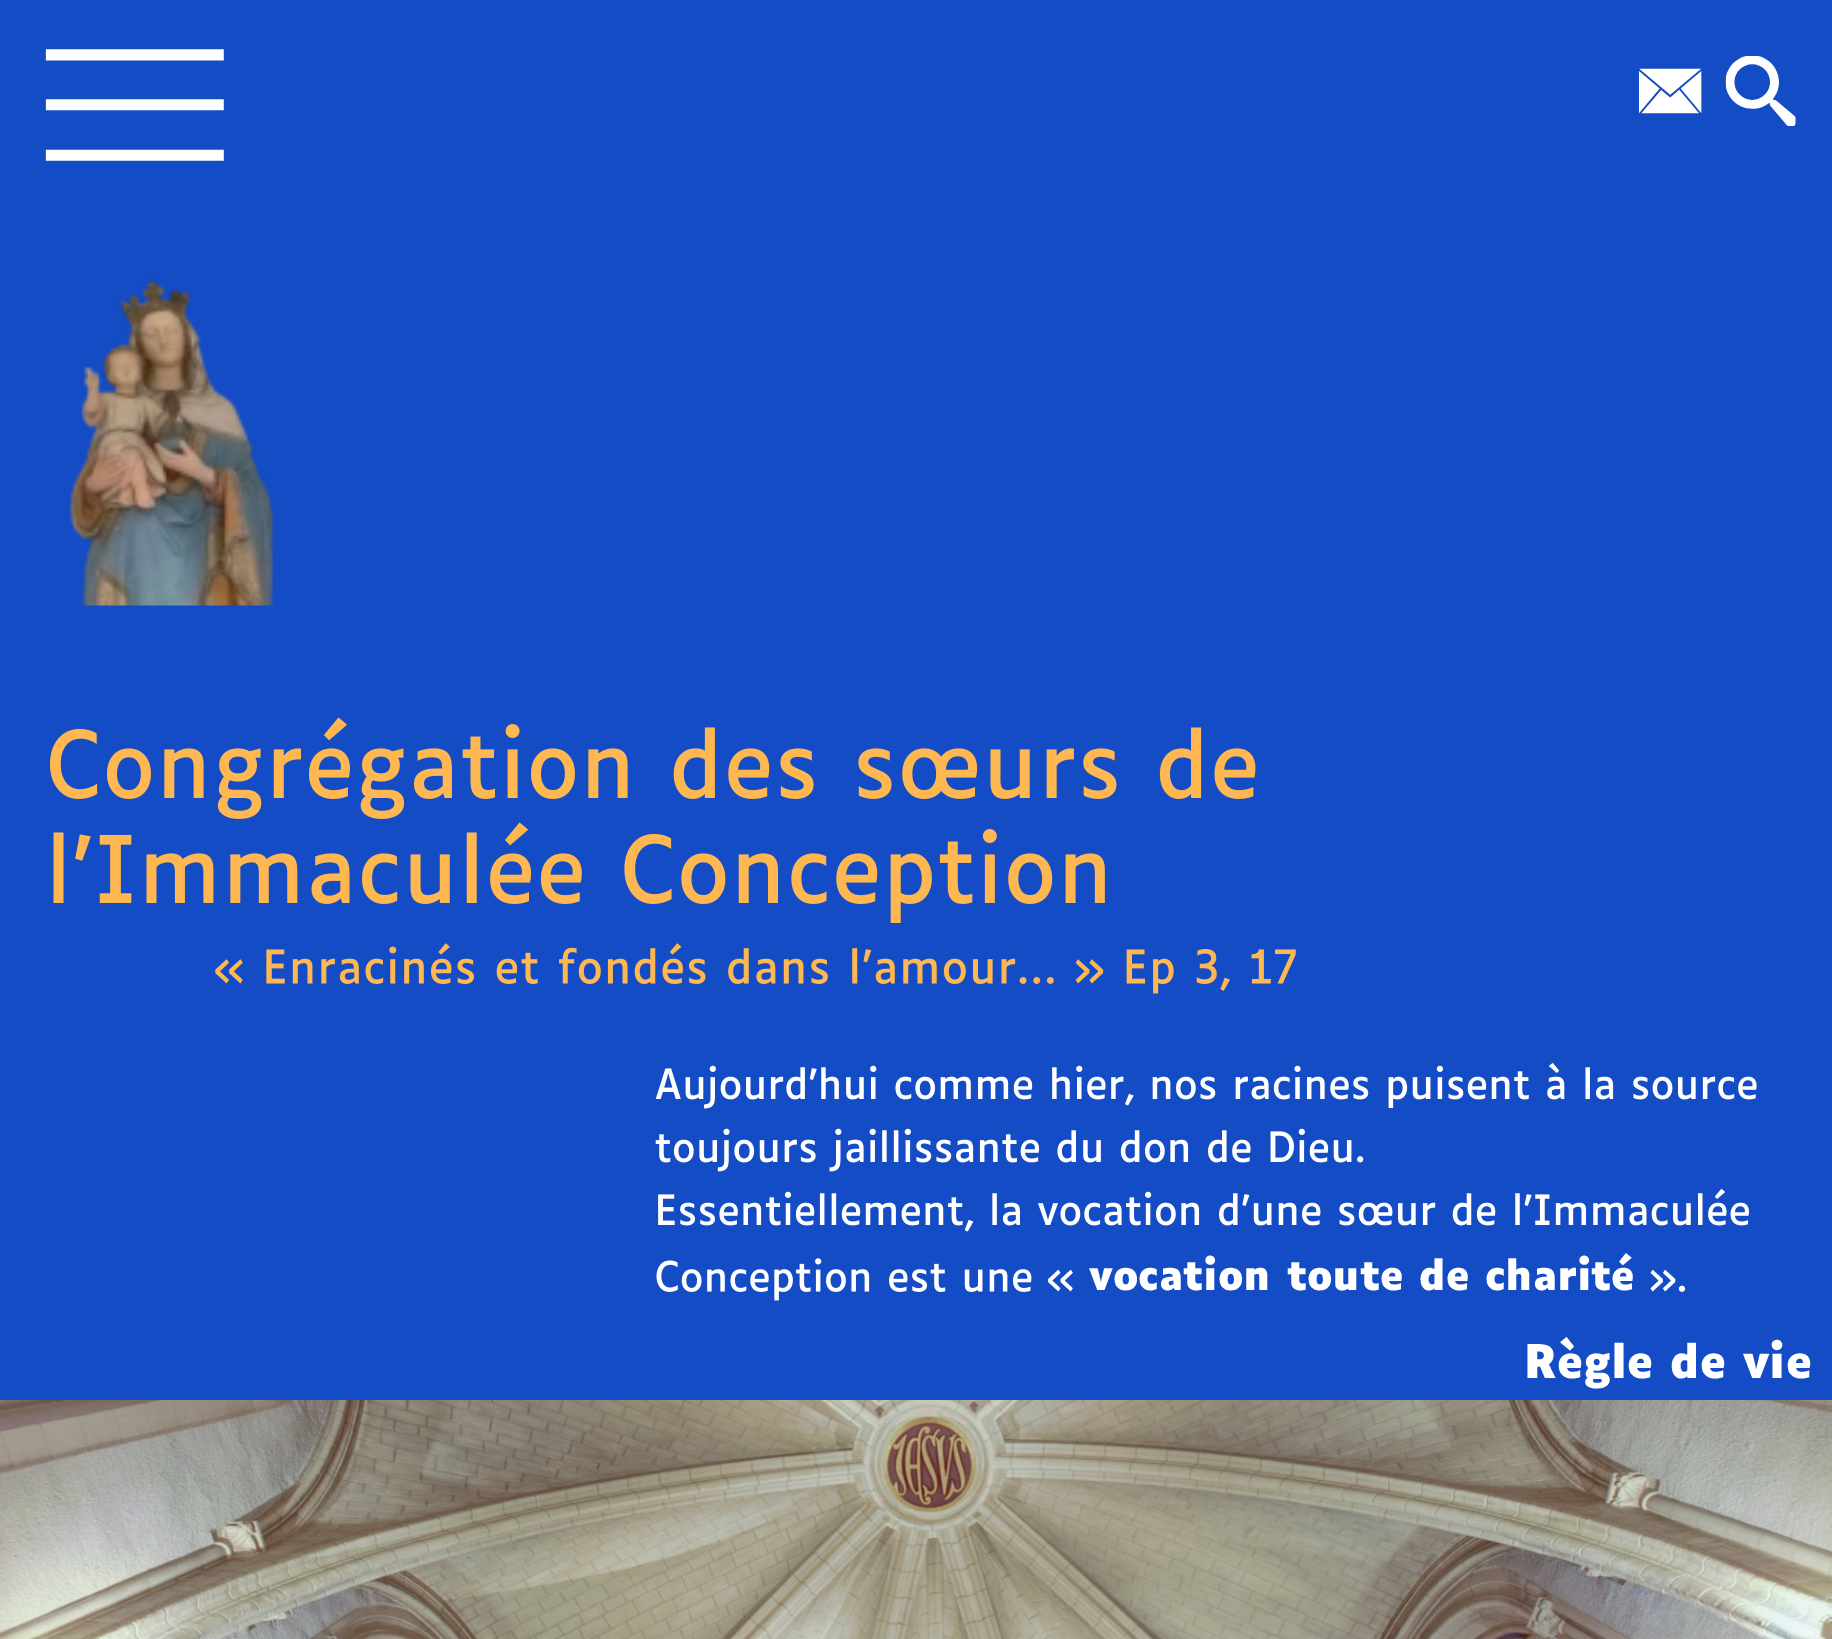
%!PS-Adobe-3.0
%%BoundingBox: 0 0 1832 1639
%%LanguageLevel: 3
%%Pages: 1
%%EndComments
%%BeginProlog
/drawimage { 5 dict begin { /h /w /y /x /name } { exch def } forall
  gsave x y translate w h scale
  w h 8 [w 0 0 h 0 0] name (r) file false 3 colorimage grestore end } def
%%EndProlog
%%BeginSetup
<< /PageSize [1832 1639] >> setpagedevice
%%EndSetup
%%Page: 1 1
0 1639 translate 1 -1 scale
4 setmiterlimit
0.075 0.298 0.773 setrgbcolor
0 0 1832 1639 rectfill
(images/1.raw) 45 49 179 112 drawimage
(images/2.raw) 1638 68 64 46 drawimage
(images/3.raw) 1725 56 71 70 drawimage
(images/4.raw) 69 279 207 327 drawimage
(images/5.raw) 49 717 1207 102 drawimage
(images/6.raw) 53 822 1052 101 drawimage
(images/7.raw) 215 943 1081 51 drawimage
(images/8.raw) 655 1062 1102 47 drawimage
(images/9.raw) 655 1128 709 44 drawimage
(images/10.raw) 658 1188 1091 44 drawimage
(images/11.raw) 656 1258 376 43 drawimage
(images/12.raw) 1048 1269 25 23 drawimage
(images/13.raw) 1650 1269 36 23 drawimage
(images/14.raw) 0 1400 1832 239 drawimage
/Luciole-Bold [40.1 0 0 -40.1 0 0] selectfont
1 setgray
1089 1290 moveto (vocation toute de charité) show
/Luciole-Bold [44.5 0 0 -44.5 0 0] selectfont
1524 1378 moveto (Règle de vie) show
showpage
%%EOF
